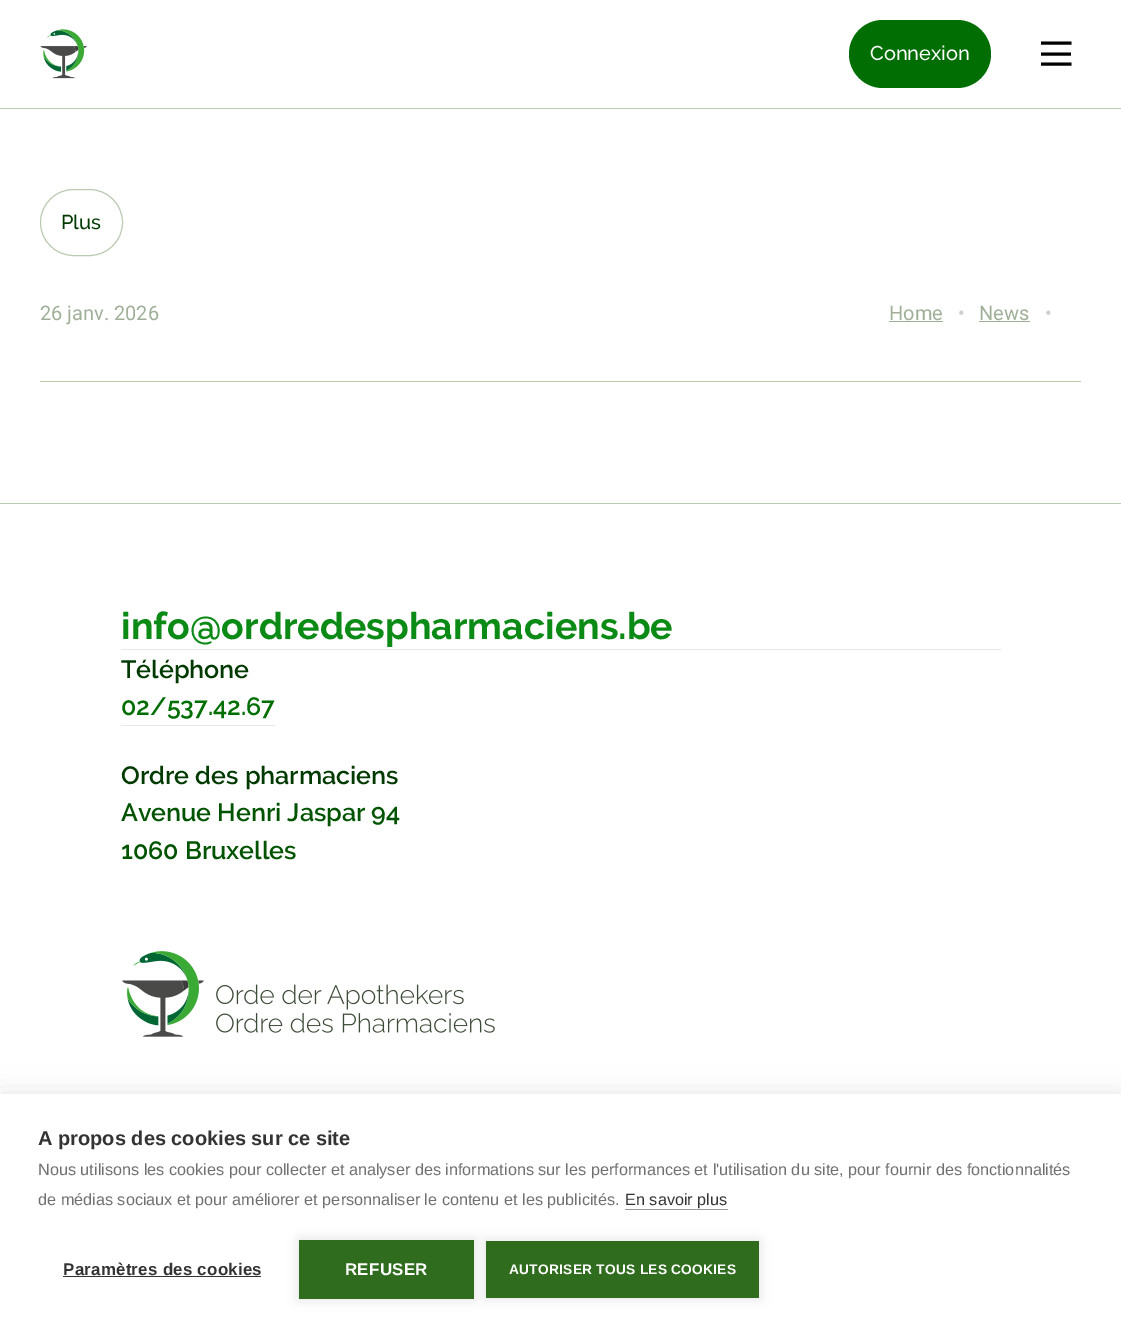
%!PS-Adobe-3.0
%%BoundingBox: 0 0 1121 1330
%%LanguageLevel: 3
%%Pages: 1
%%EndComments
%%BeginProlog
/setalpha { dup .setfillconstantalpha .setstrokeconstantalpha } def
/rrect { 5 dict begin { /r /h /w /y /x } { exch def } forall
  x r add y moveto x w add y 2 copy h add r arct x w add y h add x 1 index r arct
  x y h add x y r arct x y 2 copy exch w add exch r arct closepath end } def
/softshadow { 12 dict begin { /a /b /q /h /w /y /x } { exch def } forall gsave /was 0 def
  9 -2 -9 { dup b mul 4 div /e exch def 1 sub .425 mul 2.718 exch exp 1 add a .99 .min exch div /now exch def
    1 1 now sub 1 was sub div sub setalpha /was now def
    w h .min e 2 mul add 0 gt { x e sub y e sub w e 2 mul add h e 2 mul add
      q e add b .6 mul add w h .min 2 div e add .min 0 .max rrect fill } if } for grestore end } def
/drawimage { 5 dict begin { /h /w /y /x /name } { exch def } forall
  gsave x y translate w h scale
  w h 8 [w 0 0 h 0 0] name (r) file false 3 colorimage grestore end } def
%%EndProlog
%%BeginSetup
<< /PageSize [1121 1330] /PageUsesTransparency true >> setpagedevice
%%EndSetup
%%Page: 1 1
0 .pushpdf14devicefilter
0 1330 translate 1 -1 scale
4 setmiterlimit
1 setgray
0 0 1121 1330 rectfill
0.729 0.796 0.698 setrgbcolor
0 108 1121 1 rectfill
(images/1.raw) 40 29 47 50 drawimage
0 0.431 0.008 setrgbcolor
849 20 142 68 34 rrect fill
0 setgray
3 setlinewidth
newpath 1041 43 moveto 1071.5 43 lineto 1041 54 moveto 1071 54 lineto 1041 64 moveto 1071.5 64 lineto stroke
0.729 0.796 0.698 setrgbcolor
1 setlinewidth
40.5 189.5 82 66 33 rrect stroke
0.627 0.69 0.596 setrgbcolor
889 321 54 1 rectfill
979 321 51 1 rectfill
0.729 0.796 0.698 setrgbcolor
40 381 1041 1 rectfill
0 503 1121 1 rectfill
0.898 0.906 0.922 setrgbcolor
121 649 880 1 rectfill
121 725 154 1 rectfill
(images/2.raw) 122 951 373 86 drawimage
0 setgray
0 1094 1121 236 0 12.5 0.1 softshadow
1 setgray
0 1094 1121 236 rectfill
0.6 setgray
625 1209 103 1 rectfill
0.2 setgray
63 1276 198 1 rectfill
0 setgray
299 1240 175 59 0 6 0.12 softshadow
0.184 0.424 0.114 setrgbcolor
299 1240 175 59 rectfill
0 setgray
486 1241 273 57 0 6 0.12 softshadow
0.184 0.424 0.114 setrgbcolor
486 1241 273 57 rectfill
/Raleway-Medium [20 0 0 -20 0 0] selectfont
1 setgray
870 60 moveto (Connexion) show
0 0.227 0 setrgbcolor
61 229 moveto (Plus) show
/Roboto-Regular [20 0 0 -20 0 0] selectfont
0.627 0.69 0.596 setrgbcolor
40 320 moveto (26 janv. 2026) show
889 320 moveto (Home) show
0.804 setgray
958 320 moveto (•) show
0.627 0.69 0.596 setrgbcolor
979 320 moveto (News) show
0.804 setgray
1045 320 moveto (•) show
/Raleway-Bold [37.5 0 0 -37.5 0 0] selectfont
0.047 0.541 0.086 setrgbcolor
121 639 moveto (info@ordredespharmaciens.be) show
/Raleway-SemiBold [25 0 0 -25 0 0] selectfont
0 0.227 0 setrgbcolor
121 678 moveto (Téléphone) show
0 0.431 0.008 setrgbcolor
121 715 moveto (02/537.42.67) show
0 0.227 0 setrgbcolor
121 784 moveto (Ordre des pharmaciens) show
0 0.325 0 setrgbcolor
121 821 moveto (Avenue Henri Jaspar 94) show
121 859 moveto (1060 Bruxelles) show
/LiberationSans-Bold [20 0 0 -20 0 0] selectfont
0.2 setgray
38 1145 moveto (A propos des cookies sur ce site) show
/LiberationSans-Regular [16.25 0 0 -16.25 0 0] selectfont
0.439 setgray
38 1175 moveto (Nous utilisons les cookies pour collecter et analyser des informations sur les performances et l'utilisation du site, pour fournir des fonctionnalités) show
38 1205 moveto (de médias sociaux et pour améliorer et personnaliser le contenu et les publicités.) show
0.2 setgray
625 1205 moveto (En savoir plus) show
/LiberationSans-Bold [16.9 0 0 -16.9 0 0] selectfont
63 1275 moveto 0.25 0 (Paramètres des cookies) ashow
1 setgray
345 1275 moveto 0.25 0 (REFUSER) ashow
/LiberationSans-Bold [13.75 0 0 -13.75 0 0] selectfont
509 1274 moveto 0.25 0 (AUTORISER TOUS LES COOKIES) ashow
.poppdf14devicefilter showpage
%%EOF
